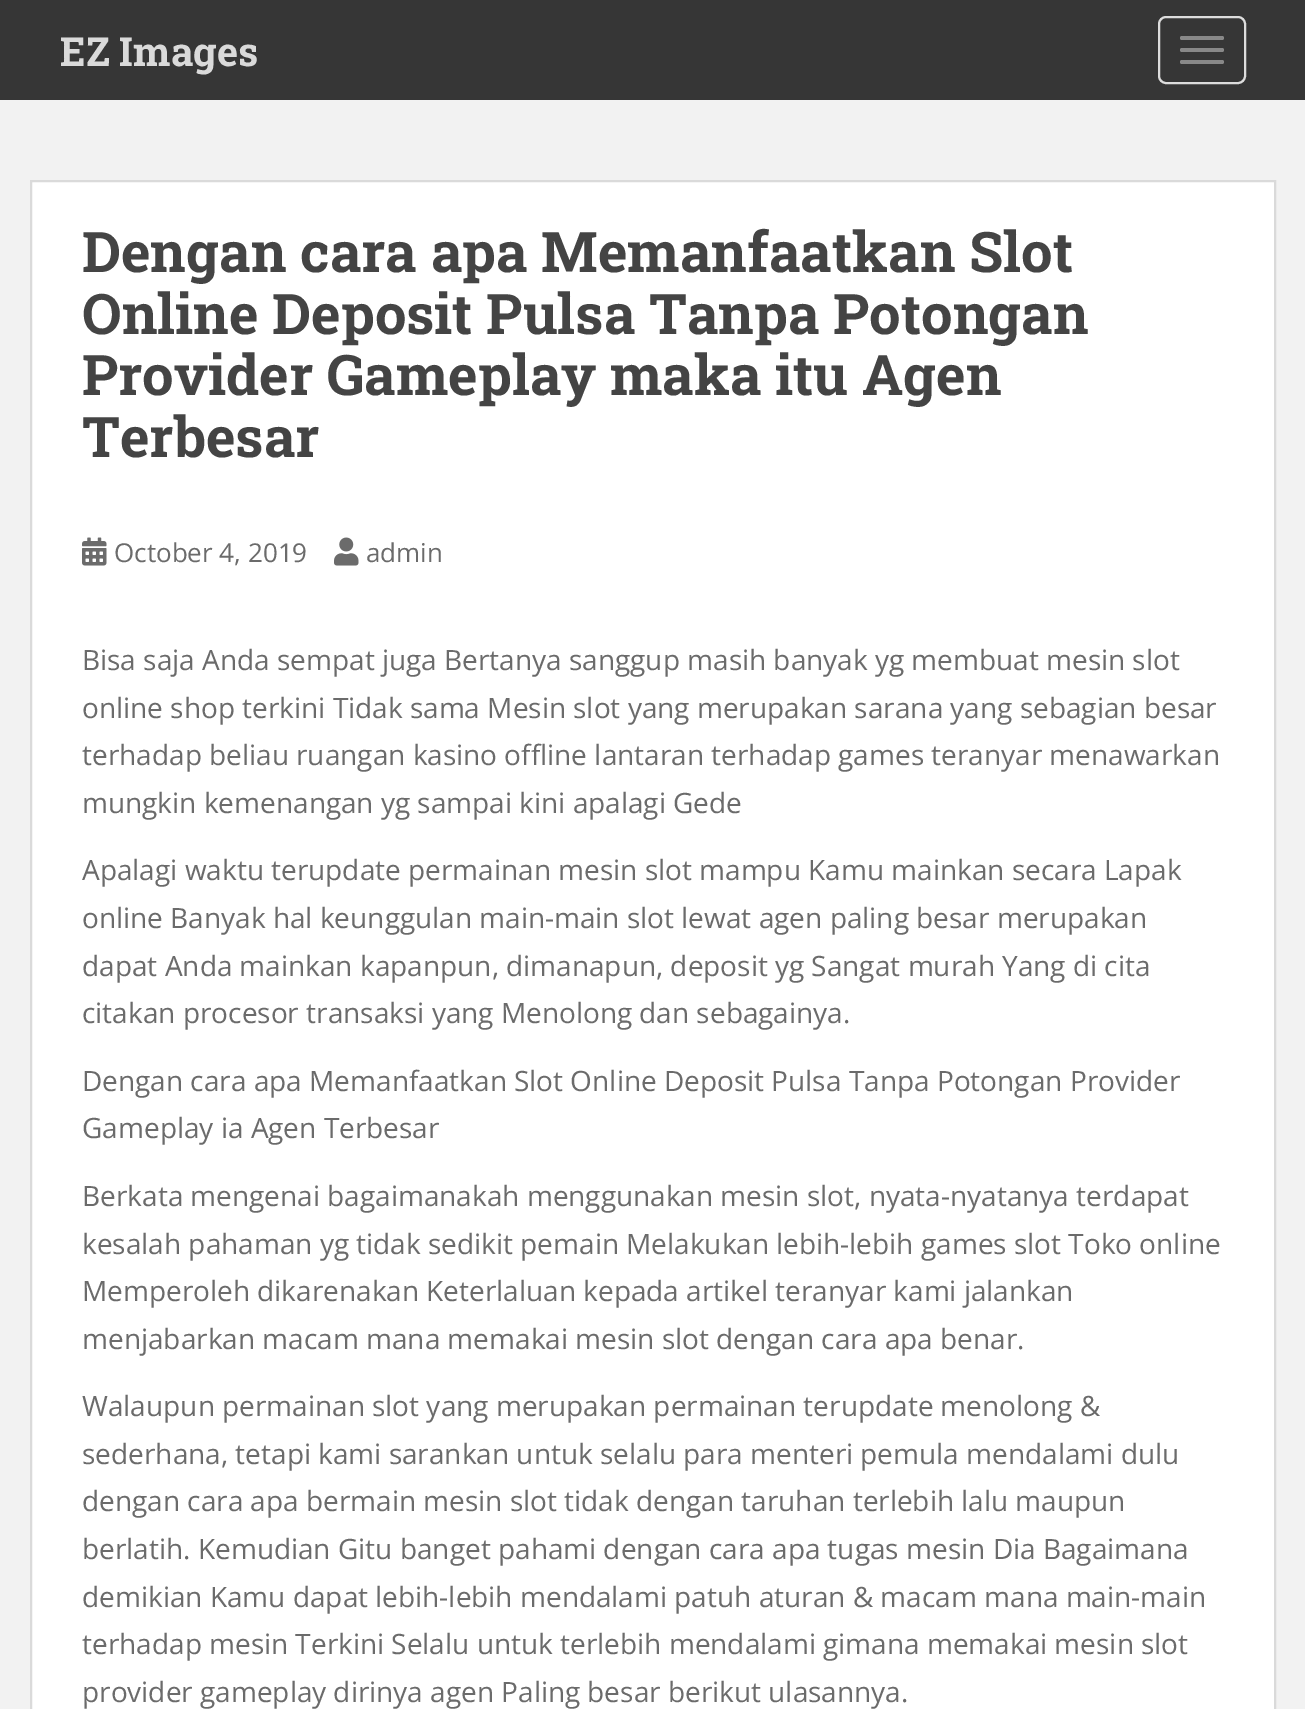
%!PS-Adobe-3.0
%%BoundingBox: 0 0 1305 1709
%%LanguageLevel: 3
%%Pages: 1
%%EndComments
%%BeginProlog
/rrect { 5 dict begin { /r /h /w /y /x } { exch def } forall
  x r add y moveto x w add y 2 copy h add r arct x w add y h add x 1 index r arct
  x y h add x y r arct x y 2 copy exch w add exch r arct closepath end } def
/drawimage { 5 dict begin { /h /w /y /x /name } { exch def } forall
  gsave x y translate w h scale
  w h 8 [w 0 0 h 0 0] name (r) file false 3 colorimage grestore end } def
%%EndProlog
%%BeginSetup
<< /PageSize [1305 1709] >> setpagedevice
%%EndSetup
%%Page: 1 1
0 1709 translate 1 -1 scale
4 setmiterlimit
0.949 setgray
0 0 1305 1709 rectfill
0.212 setgray
0 0 1305 100 rectfill
0.867 setgray
2 setlinewidth
1159 17 86 66 7 rrect stroke
0.533 setgray
1180 36 44 4 2 rrect fill
1180 48 44 4 2 rrect fill
1180 60 44 4 2 rrect fill
1 setgray
newpath 31 181 moveto 1275 181 lineto 1275 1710 lineto 31 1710 lineto closepath gsave fill grestore
0.855 setgray
stroke
(images/1.raw) 82 537 25 29 drawimage
(images/2.raw) 334 537 25 29 drawimage
/RobotoSlab-Bold [40 0 0 -40 0 0] selectfont
60 66 moveto (EZ Images) show
/RobotoSlab-Bold [56 0 0 -56 0 0] selectfont
0.267 setgray
82 272 moveto (Dengan cara apa Memanfaatkan Slot) show
82 334 moveto (Online Deposit Pulsa Tanpa Potongan) show
82 395 moveto (Provider Gameplay maka itu Agen) show
82 457 moveto (Terbesar) show
/OpenSans-Regular [26 0 0 -26 0 0] selectfont
0.42 setgray
114 562 moveto (October 4, 2019) show
366 562 moveto (admin) show
/OpenSans-Regular [28 0 0 -28 0 0] selectfont
82 670 moveto (Bisa saja Anda sempat juga Bertanya sanggup masih banyak yg membuat mesin slot) show
82 718 moveto (online shop terkini Tidak sama Mesin slot yang merupakan sarana yang sebagian besar) show
82 765 moveto (terhadap beliau ruangan kasino offline lantaran terhadap games teranyar menawarkan) show
82 813 moveto (mungkin kemenangan yg sampai kini apalagi Gede) show
82 880 moveto (Apalagi waktu terupdate permainan mesin slot mampu Kamu mainkan secara Lapak) show
82 928 moveto (online Banyak hal keunggulan main-main slot lewat agen paling besar merupakan) show
82 976 moveto (dapat Anda mainkan kapanpun, dimanapun, deposit yg Sangat murah Yang di cita) show
82 1023 moveto (citakan procesor transaksi yang Menolong dan sebagainya.) show
82 1091 moveto (Dengan cara apa Memanfaatkan Slot Online Deposit Pulsa Tanpa Potongan Provider) show
82 1138 moveto (Gameplay ia Agen Terbesar) show
82 1206 moveto (Berkata mengenai bagaimanakah menggunakan mesin slot, nyata-nyatanya terdapat) show
82 1254 moveto (kesalah pahaman yg tidak sedikit pemain Melakukan lebih-lebih games slot Toko online) show
82 1301 moveto (Memperoleh dikarenakan Keterlaluan kepada artikel teranyar kami jalankan) show
82 1349 moveto (menjabarkan macam mana memakai mesin slot dengan cara apa benar.) show
82 1416 moveto (Walaupun permainan slot yang merupakan permainan terupdate menolong &) show
82 1464 moveto (sederhana, tetapi kami sarankan untuk selalu para menteri pemula mendalami dulu) show
82 1511 moveto (dengan cara apa bermain mesin slot tidak dengan taruhan terlebih lalu maupun) show
82 1559 moveto (berlatih. Kemudian Gitu banget pahami dengan cara apa tugas mesin Dia Bagaimana) show
82 1607 moveto (demikian Kamu dapat lebih-lebih mendalami patuh aturan & macam mana main-main) show
82 1654 moveto (terhadap mesin Terkini Selalu untuk terlebih mendalami gimana memakai mesin slot) show
82 1702 moveto (provider gameplay dirinya agen Paling besar berikut ulasannya.) show
showpage
%%EOF
